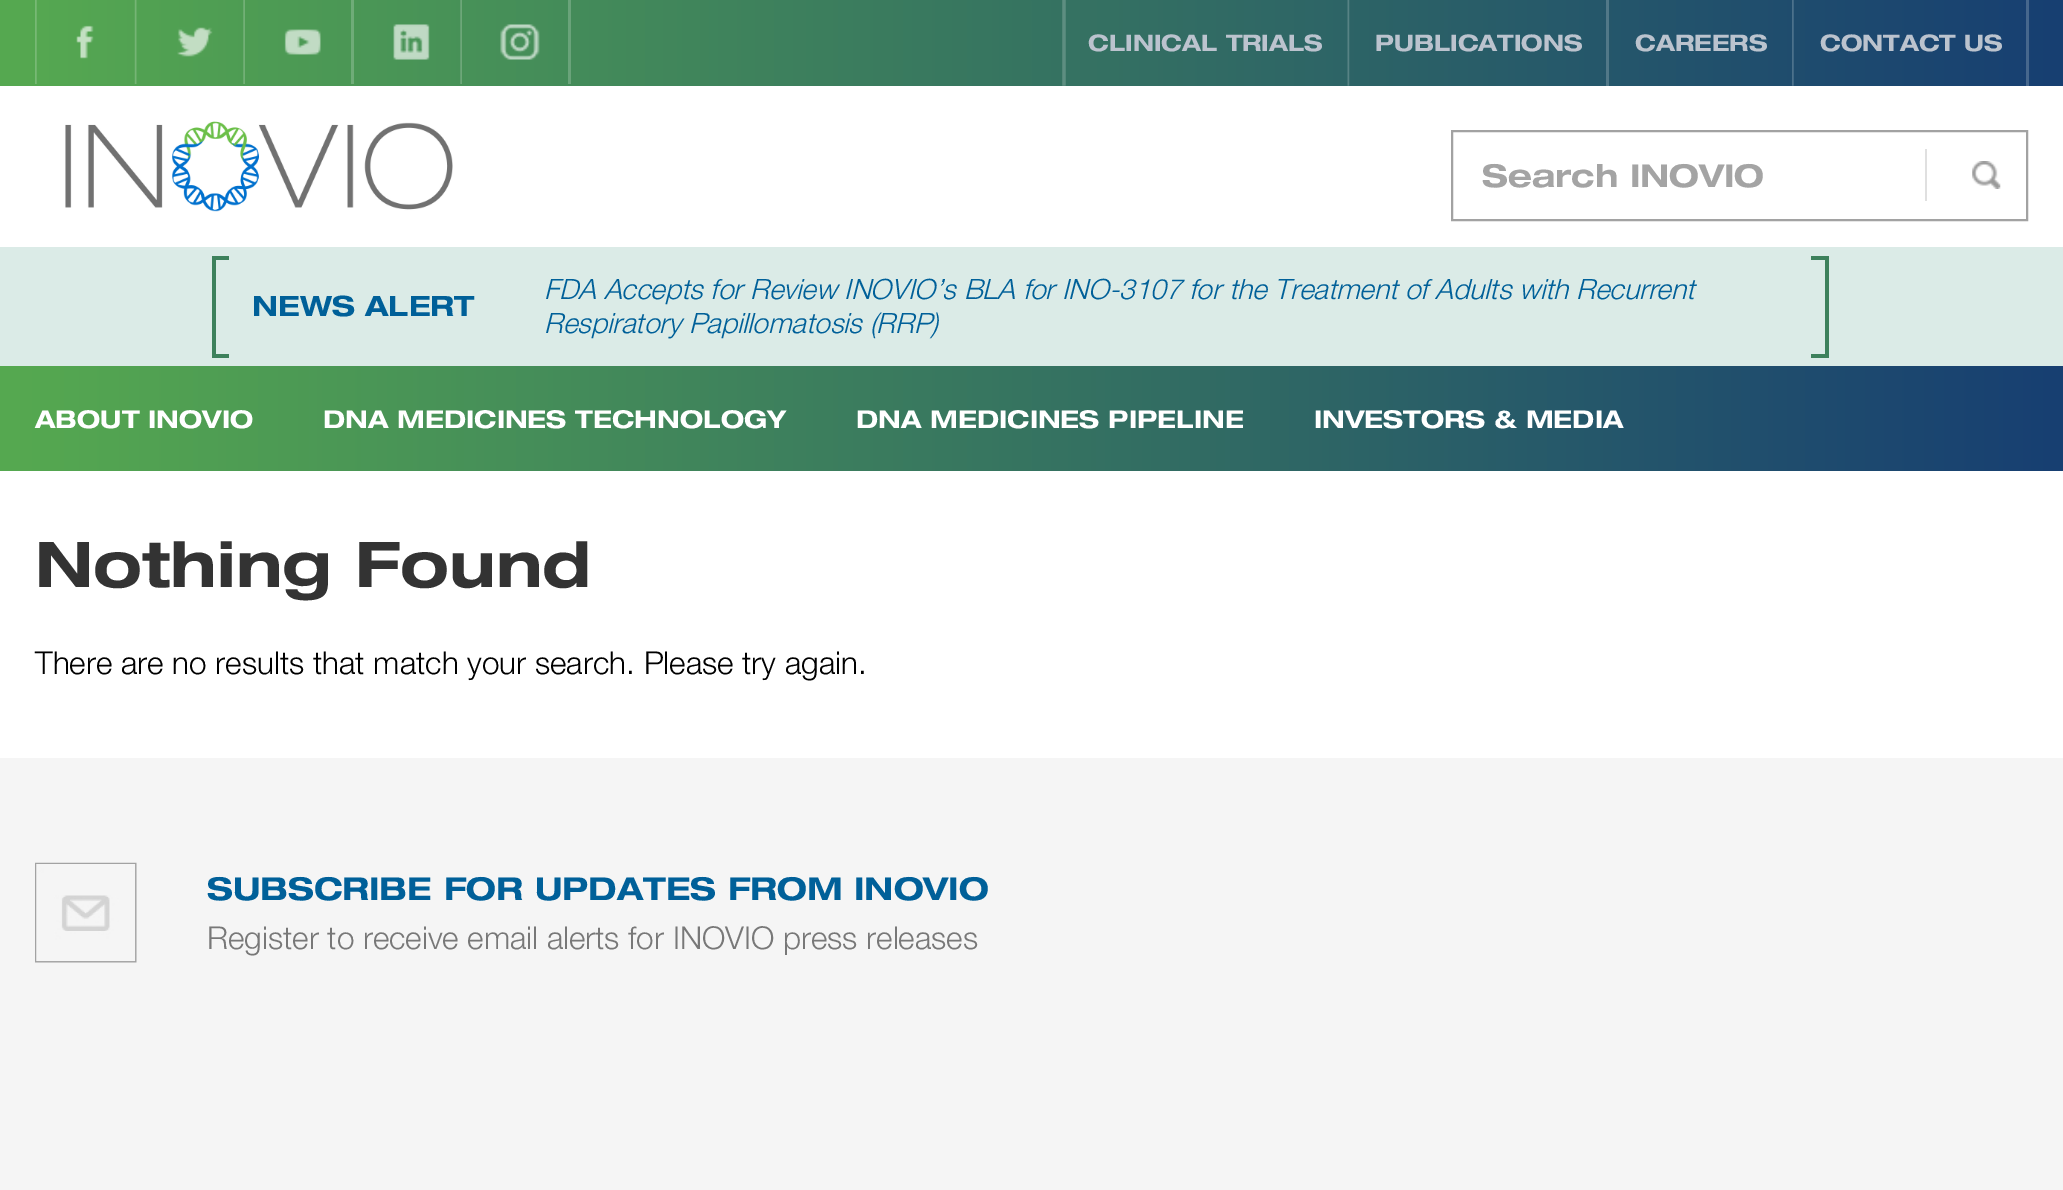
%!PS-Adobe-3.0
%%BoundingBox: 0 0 2063 1190
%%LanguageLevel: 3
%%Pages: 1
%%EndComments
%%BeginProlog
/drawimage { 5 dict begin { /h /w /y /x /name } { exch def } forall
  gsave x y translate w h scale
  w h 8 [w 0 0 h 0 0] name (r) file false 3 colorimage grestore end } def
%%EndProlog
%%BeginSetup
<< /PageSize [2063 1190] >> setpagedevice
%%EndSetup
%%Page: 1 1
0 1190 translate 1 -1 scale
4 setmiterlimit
1 setgray
0 0 2063 1190 rectfill
gsave newpath 0 0 moveto 2063 0 lineto 2063 86 lineto 0 86 lineto closepath clip newpath
<< /ShadingType 2 /ColorSpace /DeviceRGB /Coords [0 43 2063 43] /Extend [true true] /Function << /FunctionType 2 /Domain [0 1] /C0 [0.337 0.663 0.314] /C1 [0.09 0.247 0.447] /N 1 >> >> shfill grestore
(images/1.raw) 35 0 102 84 drawimage
(images/2.raw) 76 25 18 34 drawimage
(images/3.raw) 243 0 2 84 drawimage
(images/4.raw) 177 27 36 30 drawimage
0.435 0.675 0.471 setrgbcolor
351 0 3 84 rectfill
(images/5.raw) 284 29 37 26 drawimage
(images/6.raw) 460 0 2 84 drawimage
(images/7.raw) 393 24 37 36 drawimage
0.416 0.639 0.478 setrgbcolor
568 0 3 84 rectfill
(images/8.raw) 500 24 40 36 drawimage
(images/9.raw) 1062 0 288 86 drawimage
0.318 0.471 0.533 setrgbcolor
1606 0 3 86 rectfill
(images/10.raw) 1792 0 2 86 drawimage
0.275 0.404 0.553 setrgbcolor
2026 0 3 86 rectfill
(images/11.raw) 65 121 388 91 drawimage
0.635 setgray
2 setlinewidth
1452 131 575 89 rectstroke
0.878 setgray
1925 149 2 52 rectfill
(images/12.raw) 1972 161 29 28 drawimage
0.859 0.922 0.906 setrgbcolor
0 247 2063 119 rectfill
0.239 0.506 0.361 setrgbcolor
212 256 17 4 rectfill
212 354 17 4 rectfill
212 256 4 101 rectfill
1811 256 18 4 rectfill
1825 256 4 101 rectfill
1811 354 18 4 rectfill
gsave newpath 0 366 moveto 2063 366 lineto 2063 471 lineto 0 471 lineto closepath clip newpath
<< /ShadingType 2 /ColorSpace /DeviceRGB /Coords [0 418 2063 418] /Extend [true true] /Function << /FunctionType 2 /Domain [0 1] /C0 [0.337 0.663 0.314] /C1 [0.09 0.247 0.447] /N 1 >> >> shfill grestore
0.961 setgray
0 758 2063 432 rectfill
(images/13.raw) 35 862 102 101 drawimage
/HelveticaNeue-Bold [22.75 0 0 -22.75 0 0] selectfont
0.733 0.765 0.808 setrgbcolor
1088 51 moveto (CLINICAL TRIALS) show
1375 51 moveto (PUBLICATIONS) show
1635 51 moveto (CAREERS) show
1820 51 moveto (CONTACT US) show
/HelveticaNeue-Bold [31.5 0 0 -31.5 0 0] selectfont
0.643 setgray
1482 187 moveto (Search INOVIO) show
/HelveticaNeue-Bold [28 0 0 -28 0 0] selectfont
0 0.376 0.6 setrgbcolor
252 316 moveto (NEWS ALERT) show
/HelveticaNeue-LightItalic [28 0 0 -28 0 0] selectfont
544 299 moveto (FDA Accepts for Review INOVIO’s BLA for INO-3107 for the Treatment of Adults with Recurrent) show
544 333 moveto (Respiratory Papillomatosis \(RRP\)) show
/HelveticaNeue-Bold [24.5 0 0 -24.5 0 0] selectfont
1 setgray
35 428 moveto (ABOUT INOVIO) show
323 428 moveto (DNA MEDICINES TECHNOLOGY) show
856 428 moveto (DNA MEDICINES PIPELINE) show
1314 428 moveto (INVESTORS & MEDIA) show
/HelveticaNeue-Bold [63 0 0 -63 0 0] selectfont
0.2 setgray
35 587 moveto (Nothing Found) show
/HelveticaNeue-Light [31.5 0 0 -31.5 0 0] selectfont
0 setgray
35 674 moveto (There are no results that match your search. Please try again.) show
/HelveticaNeue-Bold [31.5 0 0 -31.5 0 0] selectfont
0 0.376 0.6 setrgbcolor
207 900 moveto (SUBSCRIBE FOR UPDATES FROM INOVIO) show
/HelveticaNeue-Light [31.5 0 0 -31.5 0 0] selectfont
0.471 setgray
207 949 moveto (Register to receive email alerts for INOVIO press releases) show
showpage
%%EOF
